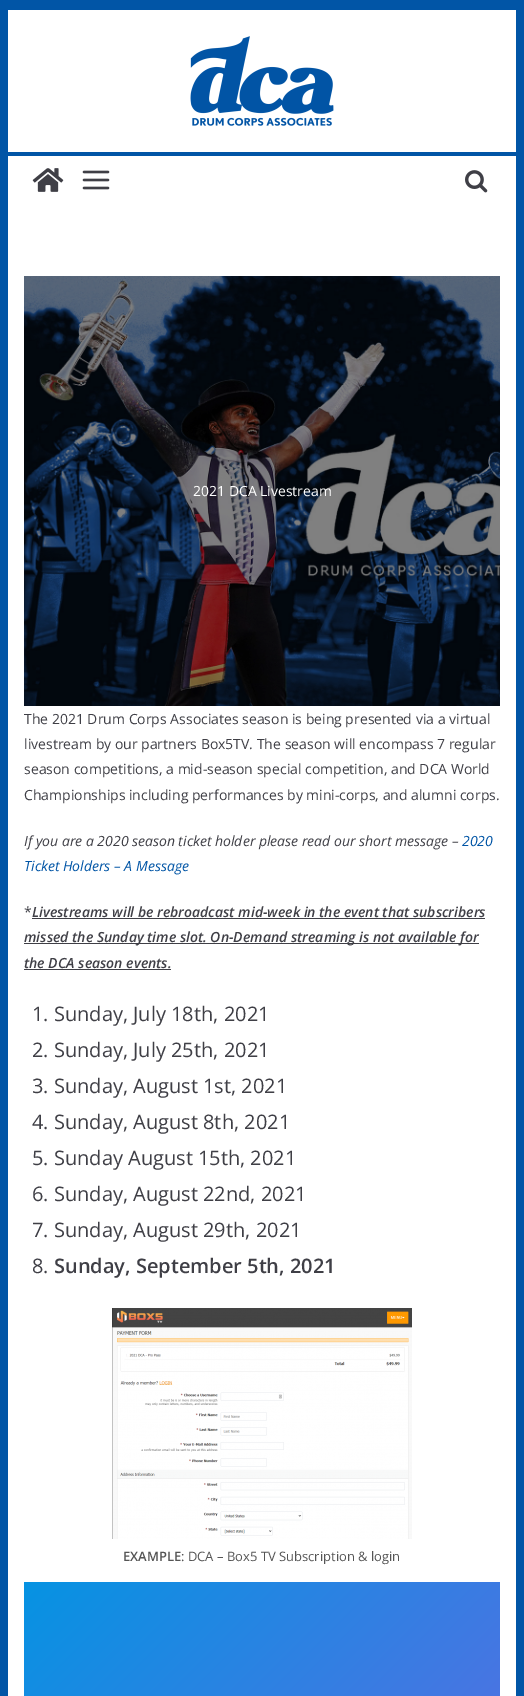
%!PS-Adobe-3.0
%%BoundingBox: 0 0 524 1696
%%LanguageLevel: 3
%%Pages: 1
%%EndComments
%%BeginProlog
/drawimage { 5 dict begin { /h /w /y /x /name } { exch def } forall
  gsave x y translate w h scale
  w h 8 [w 0 0 h 0 0] name (r) file false 3 colorimage grestore end } def
%%EndProlog
%%BeginSetup
<< /PageSize [524 1696] >> setpagedevice
%%EndSetup
%%Page: 1 1
0 1696 translate 1 -1 scale
4 setmiterlimit
0.004 0.333 0.651 setrgbcolor
0 0 524 1696 rectfill
1 setgray
8 10 508 1686 rectfill
(images/1.raw) 190 36 144 90 drawimage
0.004 0.333 0.651 setrgbcolor
8 152 508 4 rectfill
(images/2.raw) 32 168 32 24 drawimage
(images/3.raw) 82 170 28 20 drawimage
(images/4.raw) 465 170 23 23 drawimage
(images/5.raw) 24 276 476 430 drawimage
0.247 0.247 0.275 setrgbcolor
32 918 453 1 rectfill
24 943 455 1 rectfill
24 969 147 1 rectfill
(images/6.raw) 112 1308 300 231 drawimage
gsave newpath 24 1582 moveto 500 1582 lineto 500 1696 lineto 24 1696 lineto closepath clip newpath
<< /ShadingType 2 /ColorSpace /DeviceRGB /Coords [-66 1672 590 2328] /Extend [true true] /Function << /FunctionType 2 /Domain [0 1] /C0 [0.024 0.576 0.89] /C1 [0.608 0.318 0.878] /N 1 >> >> shfill grestore
/OpenSans-Regular [14 0 0 -14 0 0] selectfont
1 setgray
193 496 moveto (2021 DCA Livestream) show
0.247 0.247 0.275 setrgbcolor
24 724 moveto (The 2021 Drum Corps Associates season is being presented via a virtual) show
24 749 moveto (livestream by our partners Box5TV. The season will encompass 7 regular) show
24 774 moveto (season competitions, a mid-season special competition, and DCA World) show
24 800 moveto (Championships including performances by mini-corps, and alumni corps.) show
/OpenSans-Italic [14 0 0 -14 0 0] selectfont
24 846 moveto (If you are a 2020 season ticket holder please read our short message –) show
0.004 0.333 0.651 setrgbcolor
462 846 moveto (2020) show
24 871 moveto (Ticket Holders – A Message) show
/OpenSans-Regular [14 0 0 -14 0 0] selectfont
0.247 0.247 0.275 setrgbcolor
24 917 moveto (*) show
/OpenSans-SemiBoldItalic [14 0 0 -14 0 0] selectfont
32 917 moveto (Livestreams will be rebroadcast mid-week in the event that subscribers) show
24 942 moveto (missed the Sunday time slot. On-Demand streaming is not available for) show
24 968 moveto (the DCA season events.) show
/OpenSans-Regular [20 0 0 -20 0 0] selectfont
32 1021 moveto (1. Sunday, July 18th, 2021) show
32 1057 moveto (2. Sunday, July 25th, 2021) show
32 1093 moveto (3. Sunday, August 1st, 2021) show
32 1129 moveto (4. Sunday, August 8th, 2021) show
32 1165 moveto (5. Sunday August 15th, 2021) show
32 1201 moveto (6. Sunday, August 22nd, 2021) show
32 1237 moveto (7. Sunday, August 29th, 2021) show
32 1273 moveto (8.) show
/OpenSans-SemiBold [20 0 0 -20 0 0] selectfont
54 1273 moveto (Sunday, September 5th, 2021) show
/OpenSans-SemiBold [13 0 0 -13 0 0] selectfont
0.333 setgray
123 1561 moveto (EXAMPLE) show
/OpenSans-Regular [13 0 0 -13 0 0] selectfont
181 1561 moveto (: DCA – Box5 TV Subscription & login) show
showpage
%%EOF
